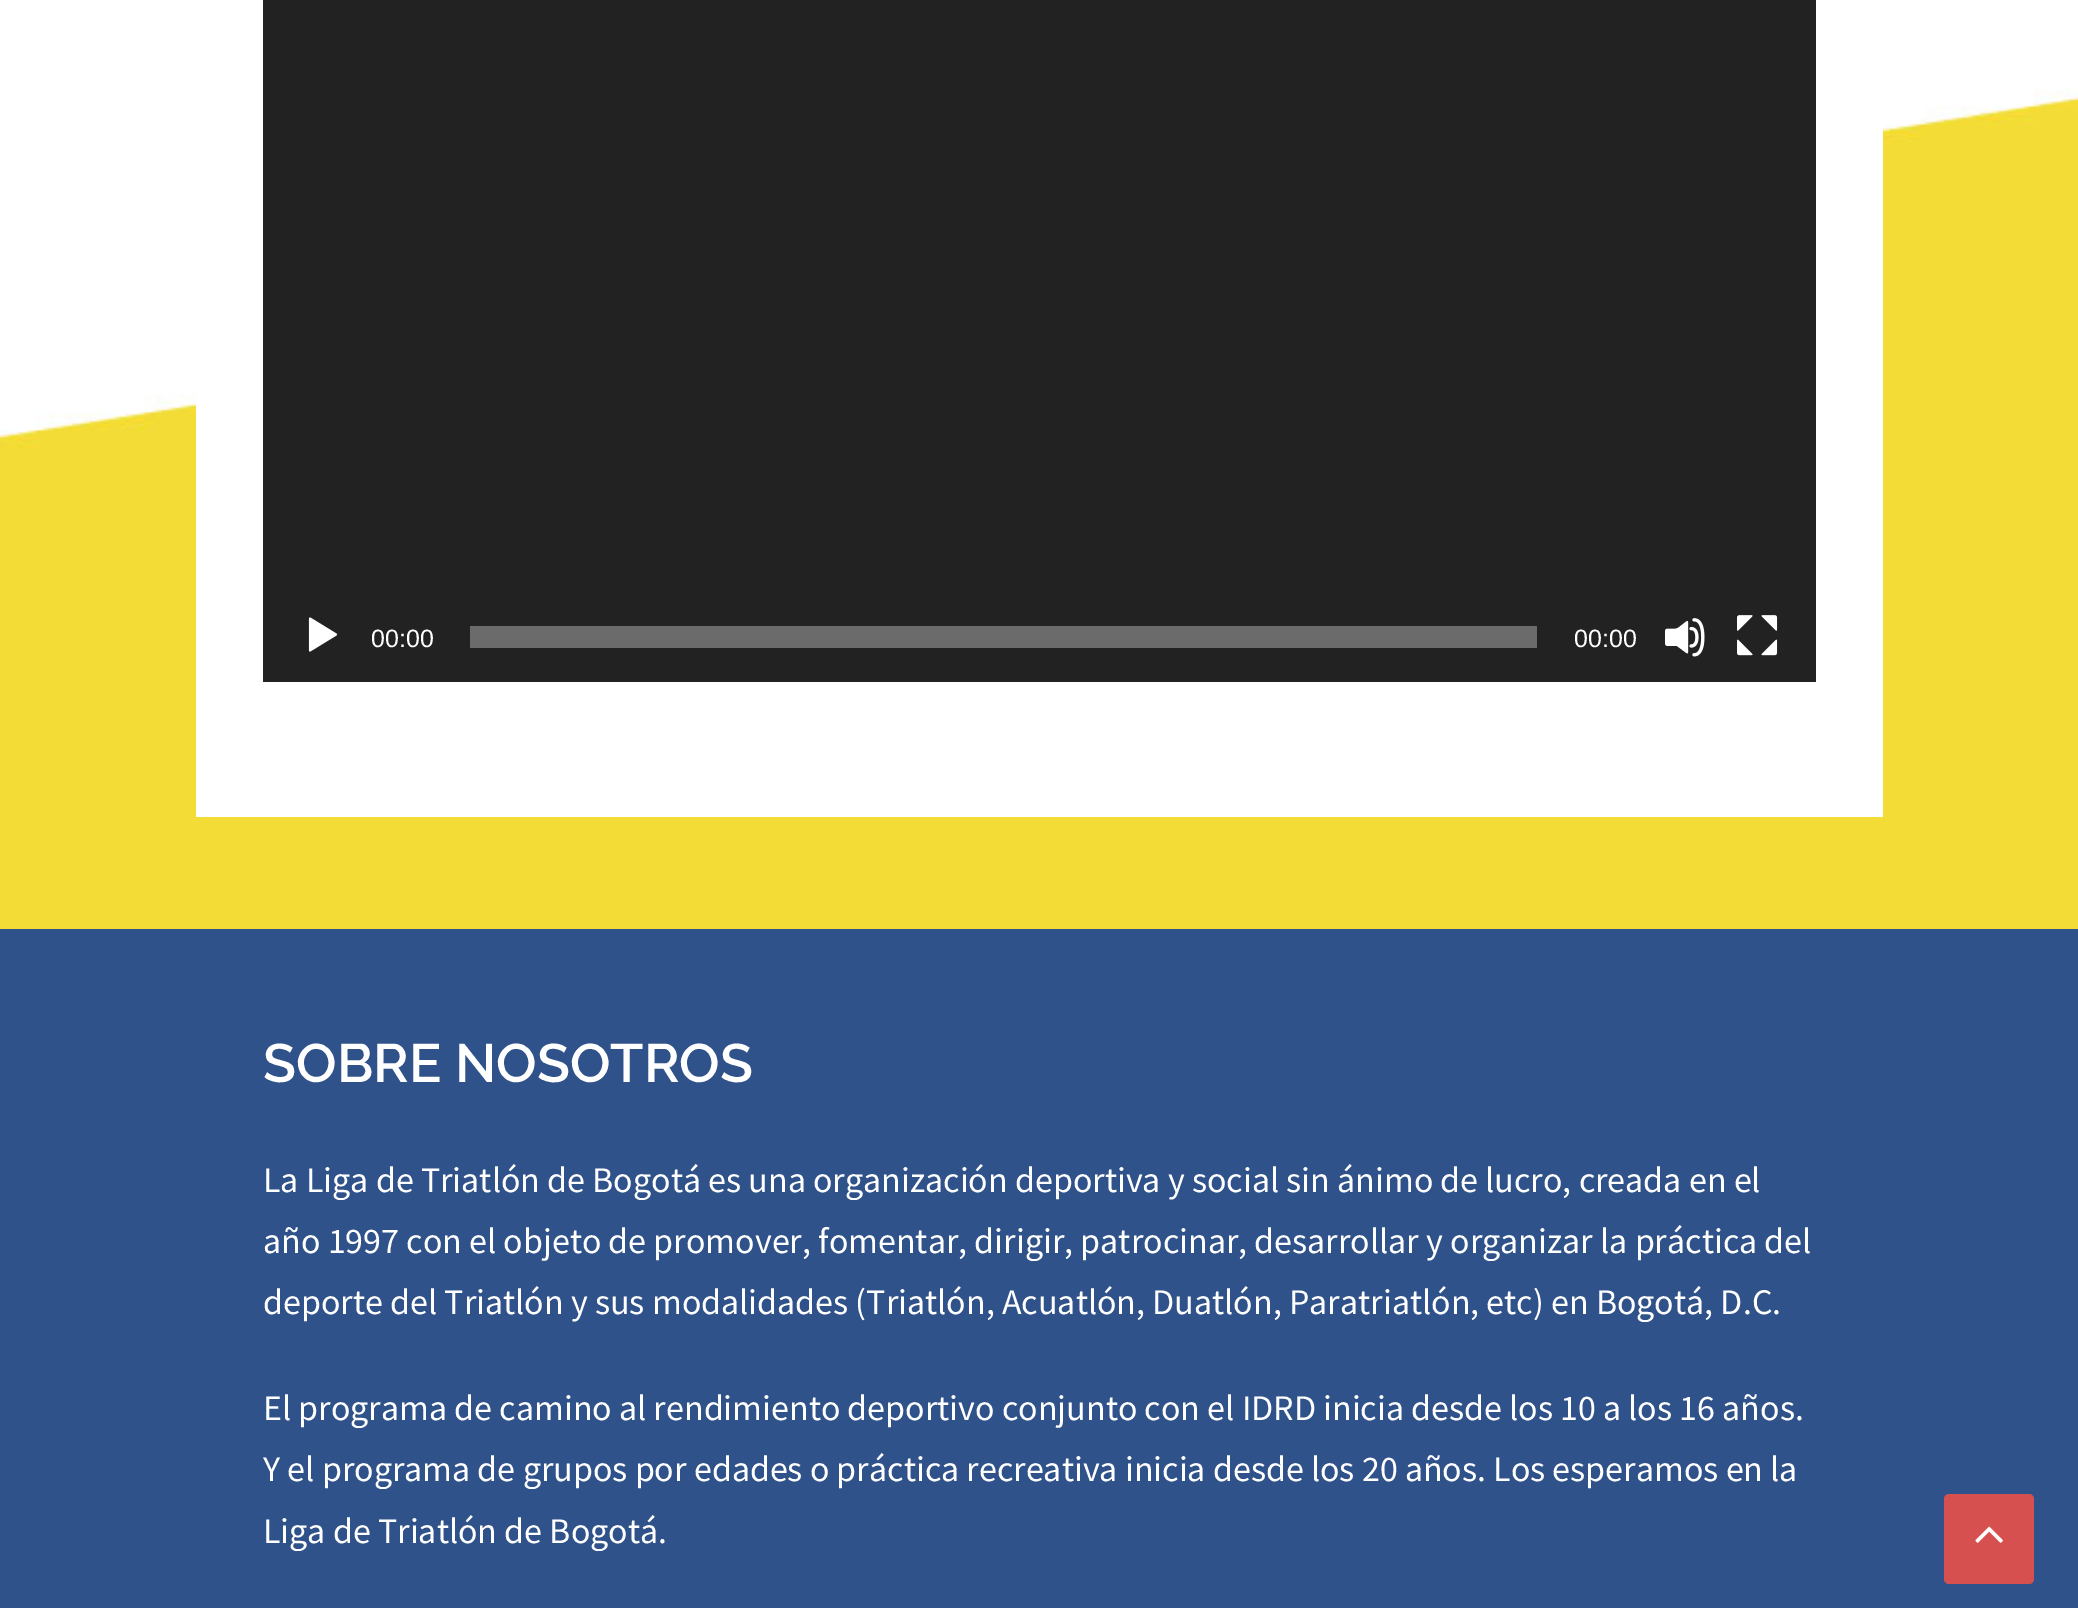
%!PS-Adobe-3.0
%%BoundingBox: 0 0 2078 1608
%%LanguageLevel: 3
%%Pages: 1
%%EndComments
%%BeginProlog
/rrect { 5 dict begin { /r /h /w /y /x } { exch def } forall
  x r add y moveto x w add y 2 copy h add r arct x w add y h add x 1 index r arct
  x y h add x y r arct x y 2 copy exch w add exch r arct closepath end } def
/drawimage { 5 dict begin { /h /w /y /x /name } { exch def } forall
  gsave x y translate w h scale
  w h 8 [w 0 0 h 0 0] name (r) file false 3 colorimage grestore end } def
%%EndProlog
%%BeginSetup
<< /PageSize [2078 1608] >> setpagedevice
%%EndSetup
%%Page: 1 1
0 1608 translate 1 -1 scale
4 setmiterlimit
1 setgray
0 0 2078 1608 rectfill
(images/1.raw) 0 89 2078 840 drawimage
196 124 1687 693 rectfill
0.133 setgray
263 0 1553 682 rectfill
(images/2.raw) 308 617 29 35 drawimage
0.42 setgray
470 626 1067 22 rectfill
(images/3.raw) 1665 618 40 39 drawimage
(images/4.raw) 1737 615 41 41 drawimage
0.188 0.322 0.541 setrgbcolor
0 929 2078 679 rectfill
0.839 0.314 0.314 setrgbcolor
1944 1494 90 90 5 rrect fill
(images/5.raw) 1975 1526 28 17 drawimage
/LiberationSans-Regular [25 0 0 -25 0 0] selectfont
1 setgray
371 647 moveto (00:00) show
1574 647 moveto (00:00) show
/Raleway-SemiBold [54 0 0 -54 0 0] selectfont
263 1082 moveto (SOBRE NOSOTROS) show
/SourceSansPro-Regular [36 0 0 -36 0 0] selectfont
263 1192 moveto (La Liga de Triatlón de Bogotá es una organización deportiva y social sin ánimo de lucro, creada en el) show
263 1253 moveto (año 1997 con el objeto de promover, fomentar, dirigir, patrocinar, desarrollar y organizar la práctica del) show
263 1314 moveto (deporte del Triatlón y sus modalidades \(Triatlón, Acuatlón, Duatlón, Paratriatlón, etc\) en Bogotá, D.C.) show
263 1420 moveto (El programa de camino al rendimiento deportivo conjunto con el IDRD inicia desde los 10 a los 16 años.) show
263 1481 moveto (Y el programa de grupos por edades o práctica recreativa inicia desde los 20 años. Los esperamos en la) show
263 1543 moveto (Liga de Triatlón de Bogotá.) show
showpage
%%EOF
